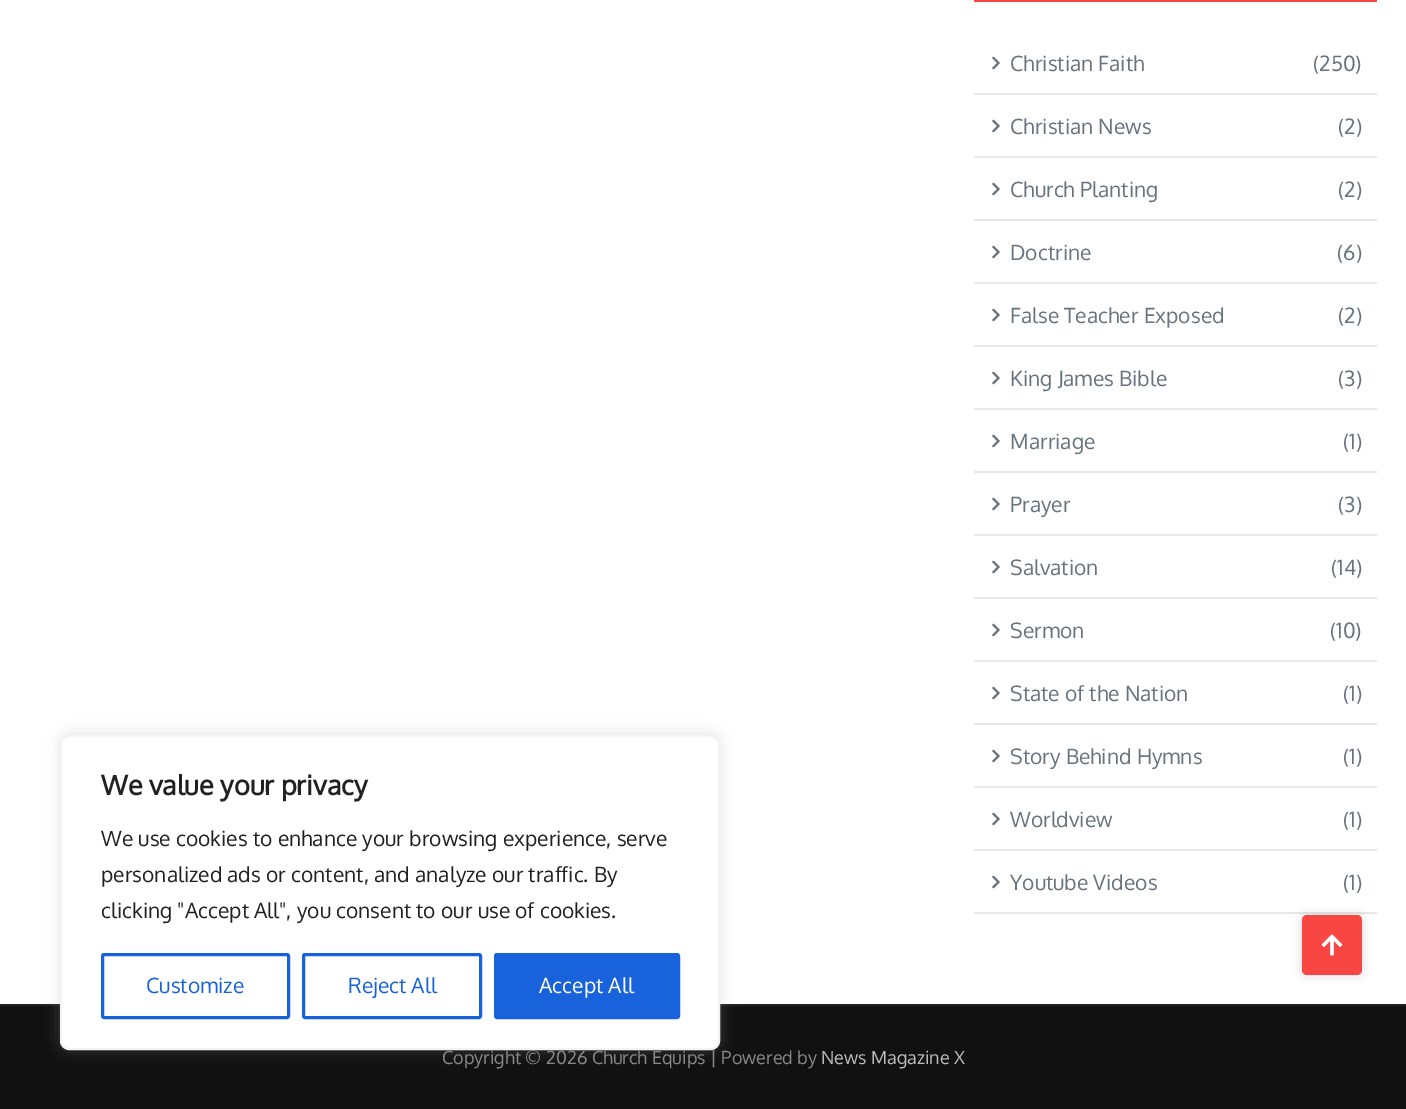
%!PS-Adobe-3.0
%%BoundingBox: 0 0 1406 1109
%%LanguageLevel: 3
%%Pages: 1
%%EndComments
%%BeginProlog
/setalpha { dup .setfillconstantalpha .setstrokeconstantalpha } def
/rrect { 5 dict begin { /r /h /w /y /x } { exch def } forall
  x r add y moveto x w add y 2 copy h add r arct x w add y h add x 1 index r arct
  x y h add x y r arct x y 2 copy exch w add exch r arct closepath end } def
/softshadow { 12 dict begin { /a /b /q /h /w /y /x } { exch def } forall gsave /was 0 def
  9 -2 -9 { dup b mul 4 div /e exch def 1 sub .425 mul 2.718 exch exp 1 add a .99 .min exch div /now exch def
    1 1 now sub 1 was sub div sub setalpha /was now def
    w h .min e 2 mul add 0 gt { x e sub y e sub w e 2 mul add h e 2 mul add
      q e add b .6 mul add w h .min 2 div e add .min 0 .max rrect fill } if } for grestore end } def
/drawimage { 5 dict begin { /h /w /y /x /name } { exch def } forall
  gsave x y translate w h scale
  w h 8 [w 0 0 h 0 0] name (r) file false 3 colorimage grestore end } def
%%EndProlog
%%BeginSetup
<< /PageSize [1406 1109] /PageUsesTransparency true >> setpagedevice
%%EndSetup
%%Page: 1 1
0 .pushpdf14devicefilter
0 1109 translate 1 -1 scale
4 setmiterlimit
1 setgray
0 0 1406 1109 rectfill
0.067 setgray
0 1006 1406 103 rectfill
0.133 setgray
0 1004 1406 2 rectfill
0.675 0.671 0.671 setrgbcolor
60 734 660 315 9 7.5 0.3 softshadow
1 setgray
61 736 658 313 8 rrect gsave fill grestore
0.957 setgray
2 setlinewidth
stroke
0.094 0.388 0.863 setrgbcolor
3 setlinewidth
102.5 954.5 186 63 1.5 rrect stroke
303.5 954.5 177 63 1.5 rrect stroke
495.5 954.5 183 63 1.5 rrect gsave fill grestore
stroke
0.973 0.275 0.263 setrgbcolor
974 0 403 2 rectfill
0.91 setgray
974 93 403 2 rectfill
(images/1.raw) 992 56 8 14 drawimage
974 156 403 2 rectfill
(images/1.raw) 992 119 8 14 drawimage
974 219 403 2 rectfill
(images/1.raw) 992 182 8 14 drawimage
974 282 403 2 rectfill
(images/1.raw) 992 245 8 14 drawimage
974 345 403 2 rectfill
(images/1.raw) 992 308 8 14 drawimage
974 408 403 2 rectfill
(images/1.raw) 992 371 8 14 drawimage
974 471 403 2 rectfill
(images/1.raw) 992 434 8 14 drawimage
974 534 403 2 rectfill
(images/1.raw) 992 497 8 14 drawimage
974 597 403 2 rectfill
(images/1.raw) 992 560 8 14 drawimage
974 660 403 2 rectfill
(images/1.raw) 992 623 8 14 drawimage
974 723 403 2 rectfill
(images/1.raw) 992 686 8 14 drawimage
974 786 403 2 rectfill
(images/1.raw) 992 749 8 14 drawimage
974 849 403 2 rectfill
(images/1.raw) 992 812 8 14 drawimage
974 912 403 2 rectfill
(images/1.raw) 992 875 8 14 drawimage
0 setgray
1302 915 60 60 5 5 0.15 softshadow
0.973 0.275 0.263 setrgbcolor
1302 915 60 60 5 rrect fill
(images/2.raw) 1321 934 22 22 drawimage
/Oxygen-Bold [27 0 0 -27 0 0] selectfont
0.129 setgray
101 795 moveto (We value your privacy) show
/Oxygen-Regular [21 0 0 -21 0 0] selectfont
101 846 moveto (We use cookies to enhance your browsing experience, serve) show
101 882 moveto (personalized ads or content, and analyze our traffic. By) show
101 918 moveto (clicking "Accept All", you consent to our use of cookies.) show
0.094 0.388 0.863 setrgbcolor
146 993 moveto (Customize) show
348 993 moveto (Reject All) show
1 setgray
539 993 moveto (Accept All) show
0.404 0.451 0.494 setrgbcolor
1010 71 moveto (Christian Faith) show
1313 71 moveto (\(250\)) show
1010 134 moveto (Christian News) show
1338 134 moveto (\(2\)) show
1010 197 moveto (Church Planting) show
1338 197 moveto (\(2\)) show
1010 260 moveto (Doctrine) show
1337 260 moveto (\(6\)) show
1010 323 moveto (False Teacher Exposed) show
1338 323 moveto (\(2\)) show
1010 386 moveto (King James Bible) show
1338 386 moveto (\(3\)) show
1010 449 moveto (Marriage) show
1343 449 moveto (\(1\)) show
1010 512 moveto (Prayer) show
1338 512 moveto (\(3\)) show
1010 575 moveto (Salvation) show
1331 575 moveto (\(14\)) show
1010 638 moveto (Sermon) show
1330 638 moveto (\(10\)) show
1010 701 moveto (State of the Nation) show
1343 701 moveto (\(1\)) show
1010 764 moveto (Story Behind Hymns) show
1343 764 moveto (\(1\)) show
1010 827 moveto (Worldview) show
1343 827 moveto (\(1\)) show
1010 890 moveto (Youtube Videos) show
1343 890 moveto (\(1\)) show
/Oxygen-Regular [18 0 0 -18 0 0] selectfont
0.533 setgray
442 1064 moveto (Copyright © 2026 Church Equips | Powered by) show
0.737 setgray
821 1064 moveto (News Magazine X) show
.poppdf14devicefilter showpage
%%EOF
